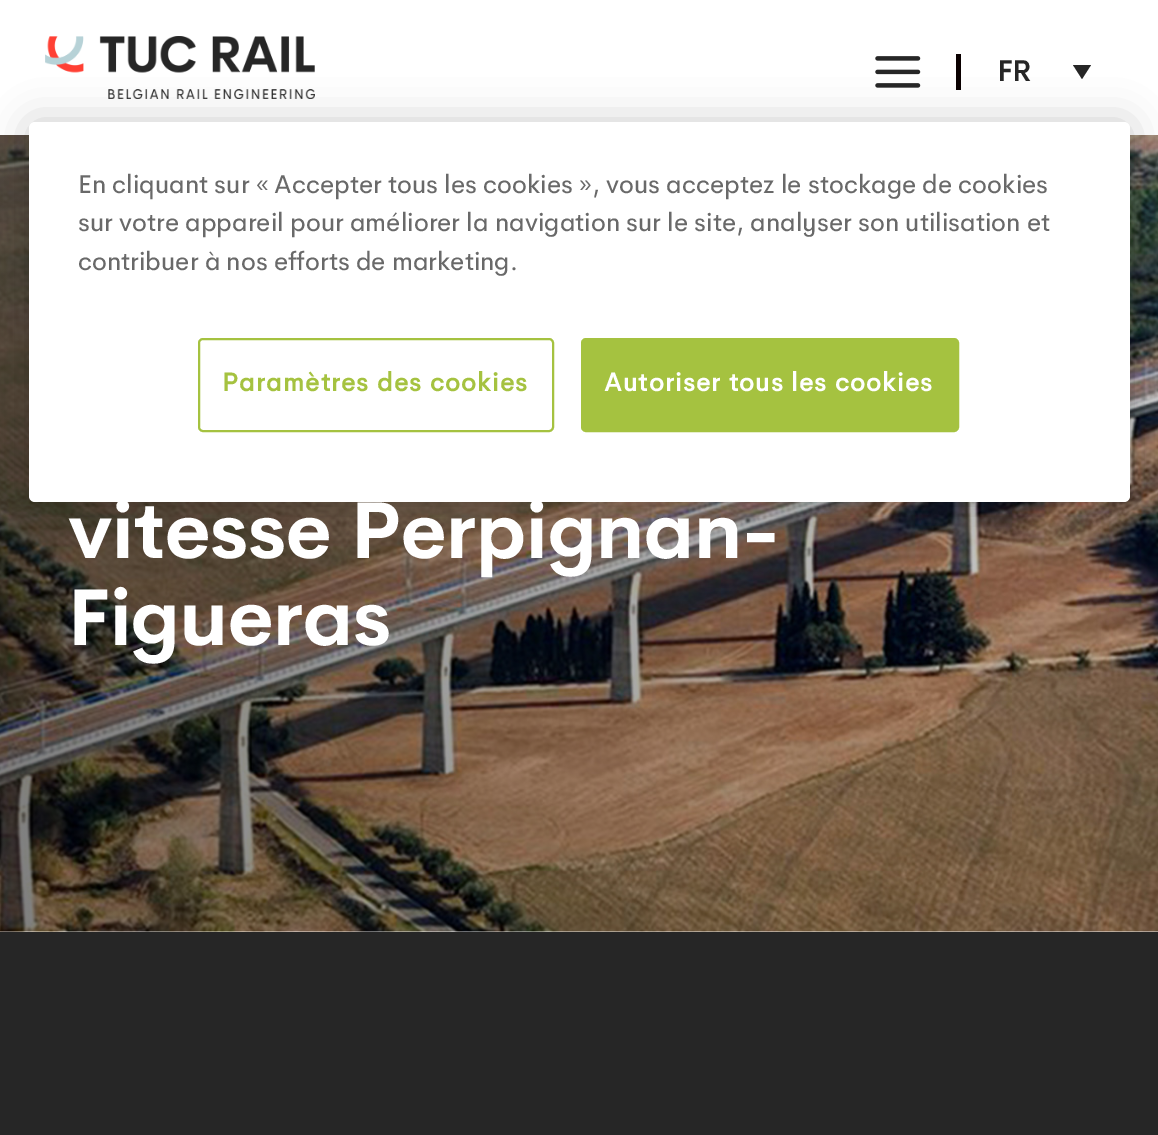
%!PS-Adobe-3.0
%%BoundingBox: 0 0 1158 1135
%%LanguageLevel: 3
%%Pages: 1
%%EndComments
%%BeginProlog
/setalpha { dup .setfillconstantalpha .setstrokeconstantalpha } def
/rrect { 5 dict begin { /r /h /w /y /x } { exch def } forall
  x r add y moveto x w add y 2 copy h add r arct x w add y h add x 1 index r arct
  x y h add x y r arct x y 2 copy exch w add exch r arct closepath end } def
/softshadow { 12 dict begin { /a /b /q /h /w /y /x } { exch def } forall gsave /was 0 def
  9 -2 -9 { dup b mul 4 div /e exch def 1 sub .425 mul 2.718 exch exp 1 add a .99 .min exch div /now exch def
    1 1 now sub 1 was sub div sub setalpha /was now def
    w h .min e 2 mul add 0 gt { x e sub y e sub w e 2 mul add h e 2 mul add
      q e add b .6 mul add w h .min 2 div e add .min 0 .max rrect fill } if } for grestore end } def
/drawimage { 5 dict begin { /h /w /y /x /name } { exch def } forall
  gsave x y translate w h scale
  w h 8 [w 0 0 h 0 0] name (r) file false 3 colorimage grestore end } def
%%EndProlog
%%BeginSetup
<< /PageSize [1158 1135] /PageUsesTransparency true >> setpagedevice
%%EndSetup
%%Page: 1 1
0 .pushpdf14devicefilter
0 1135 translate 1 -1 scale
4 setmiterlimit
1 setgray
0 0 1158 1135 rectfill
(images/1.raw) 45 36 270 63 drawimage
(images/2.raw) 875 56 46 32 drawimage
0.039 0 0 setrgbcolor
956 54 5 36 rectfill
0.149 setgray
newpath 1073 65 moveto 1091 65 lineto 1082 79 lineto closepath fill
(images/3.raw) 0 135 1158 797 drawimage
0 932 1158 203 rectfill
0 setgray
29 122 1101 380 6 20 0.2 softshadow
1 setgray
29 122 1101 380 6 rrect fill
0.647 0.761 0.251 setrgbcolor
2 setlinewidth
199 339 354 92 4 rrect stroke
582 339 376 92 4 rrect gsave fill grestore
stroke
/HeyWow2-Bold [29 0 0 -29 0 0] selectfont
0.149 setgray
997 81 moveto (FR) show
/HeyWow-Bold [78.75 0 0 -78.75 0 0] selectfont
1 setgray
68 558 moveto (vitesse Perpignan-) show
68 645 moveto (Figueras) show
/HeyWow-Regular [25.6 0 0 -25.6 0 0] selectfont
0.412 setgray
78 193 moveto (En cliquant sur « Accepter tous les cookies », vous acceptez le stockage de cookies) show
78 231 moveto (sur votre appareil pour améliorer la navigation sur le site, analyser son utilisation et) show
78 270 moveto (contribuer à nos efforts de marketing.) show
/HeyWow2-Bold [25.6 0 0 -25.6 0 0] selectfont
0.647 0.761 0.251 setrgbcolor
222 391 moveto 1.25 0 (Paramètres des cookies) ashow
1 setgray
604 391 moveto 1.25 0 (Autoriser tous les cookies) ashow
.poppdf14devicefilter showpage
%%EOF
